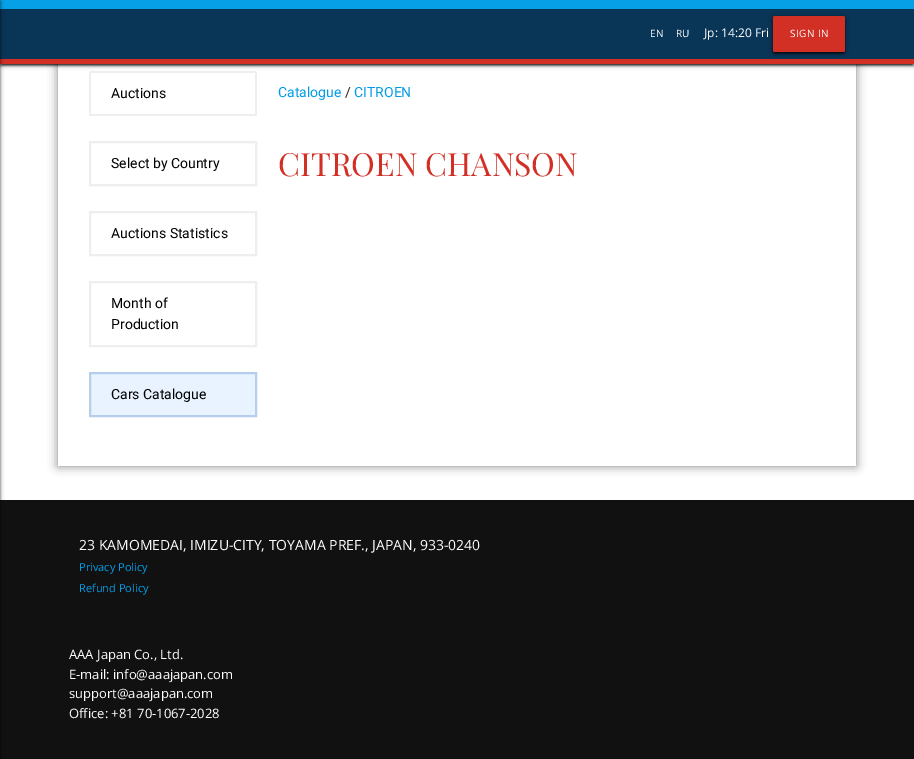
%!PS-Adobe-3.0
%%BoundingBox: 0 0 914 759
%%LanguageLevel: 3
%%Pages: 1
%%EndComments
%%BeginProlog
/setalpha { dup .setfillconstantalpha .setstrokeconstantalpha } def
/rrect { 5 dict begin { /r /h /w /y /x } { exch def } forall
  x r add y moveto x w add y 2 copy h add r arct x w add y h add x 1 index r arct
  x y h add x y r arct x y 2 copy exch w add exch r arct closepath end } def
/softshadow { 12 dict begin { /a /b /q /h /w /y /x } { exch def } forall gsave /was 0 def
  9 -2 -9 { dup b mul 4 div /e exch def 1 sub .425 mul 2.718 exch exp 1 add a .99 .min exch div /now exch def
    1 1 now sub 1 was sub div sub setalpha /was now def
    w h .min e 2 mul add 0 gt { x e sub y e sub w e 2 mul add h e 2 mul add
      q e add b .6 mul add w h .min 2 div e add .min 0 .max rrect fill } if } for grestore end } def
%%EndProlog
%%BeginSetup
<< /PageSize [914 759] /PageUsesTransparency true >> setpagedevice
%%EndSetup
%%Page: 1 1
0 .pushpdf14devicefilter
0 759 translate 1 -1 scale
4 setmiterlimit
1 setgray
0 0 914 759 rectfill
0 setgray
2 5 910 60 0 0.5 0.42 softshadow
gsave
newpath 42 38 moveto 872 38 lineto 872 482 lineto 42 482 lineto closepath 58 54 moveto 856 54 lineto 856 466 lineto 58 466 lineto closepath eoclip newpath
58 54 798 412 0 5 0.5 softshadow
grestore
0.933 setgray
newpath 91 71 moveto 90 71 89 72 89 73 curveto 89 116 lineto 257 116 lineto 257 73 lineto 257 72 256 71 255 71 curveto closepath 91 73 moveto 91 114 lineto 255 114 lineto 255 73 lineto closepath eofill
0 setgray
0 1 914 64 0 2.5 0.42 softshadow
0 2 914 64 0 1 0.44 softshadow
0.035 0.208 0.337 setrgbcolor
0 9 914 50 rectfill
0.824 0.184 0.145 setrgbcolor
0 59 914 5 rectfill
0.024 0.627 0.902 setrgbcolor
0 0 914 9 rectfill
0.067 setgray
0 500 914 259 rectfill
0 setgray
-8 1 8 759 0 2.5 0.42 softshadow
-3 2 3 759 0 1 0.44 softshadow
775 21 68 32 0 0.5 0.42 softshadow
773 17 72 36 2 2.5 0.42 softshadow
773 18 72 36 2 1 0.44 softshadow
0.824 0.184 0.145 setrgbcolor
773 16 72 36 2 rrect fill
0.933 setgray
2 setlinewidth
90 142 166 43 rectstroke
90 212 166 43 rectstroke
90 282 166 64 rectstroke
0.914 0.953 1 setrgbcolor
newpath 90 373 moveto 256 373 lineto 256 416 lineto 90 416 lineto closepath gsave fill grestore
0.71 0.808 0.922 setrgbcolor
stroke
/OpenSans-Regular [10 0 0 -10 0 0] selectfont
1 setgray
650 37 moveto (EN) show
676 37 moveto (RU) show
/OpenSans-Regular [12 0 0 -12 0 0] selectfont
704 37 moveto (Jp:) show
721 37 moveto (14:20 Fri) show
/OpenSans-Regular [10 0 0 -10 0 0] selectfont
790 37 moveto 0.5 0 (SIGN IN) ashow
/Roboto-Regular [14 0 0 -14 0 0] selectfont
0 setgray
111 98 moveto (Auctions) show
111 168 moveto (Select by Country) show
111 238 moveto (Auctions Statistics) show
111 308 moveto (Month of) show
111 329 moveto (Production) show
111 399 moveto (Cars Catalogue) show
0.012 0.608 0.898 setrgbcolor
278 97 moveto (Catalogue) show
0.129 setgray
345 97 moveto (/) show
0.012 0.608 0.898 setrgbcolor
354 97 moveto (CITROEN) show
/PlayfairDisplay-Regular [32 0 0 -32 0 0] selectfont
0.824 0.184 0.145 setrgbcolor
278 176 moveto (CITROEN CHANSON) show
/OpenSans-Regular [14 0 0 -14 0 0] selectfont
1 setgray
79 550 moveto (23 KAMOMEDAI, IMIZU-CITY, TOYAMA PREF., JAPAN, 933-0240) show
/OpenSans-Regular [11 0 0 -11 0 0] selectfont
0.012 0.608 0.898 setrgbcolor
79 571 moveto (Privacy Policy) show
79 592 moveto (Refund Policy) show
/OpenSans-Regular [13 0 0 -13 0 0] selectfont
1 setgray
69 659 moveto (AAA Japan Co., Ltd.) show
69 679 moveto (E-mail: info@aaajapan.com) show
69 698 moveto (support@aaajapan.com) show
69 718 moveto (Office: +81 70-1067-2028) show
.poppdf14devicefilter showpage
%%EOF
